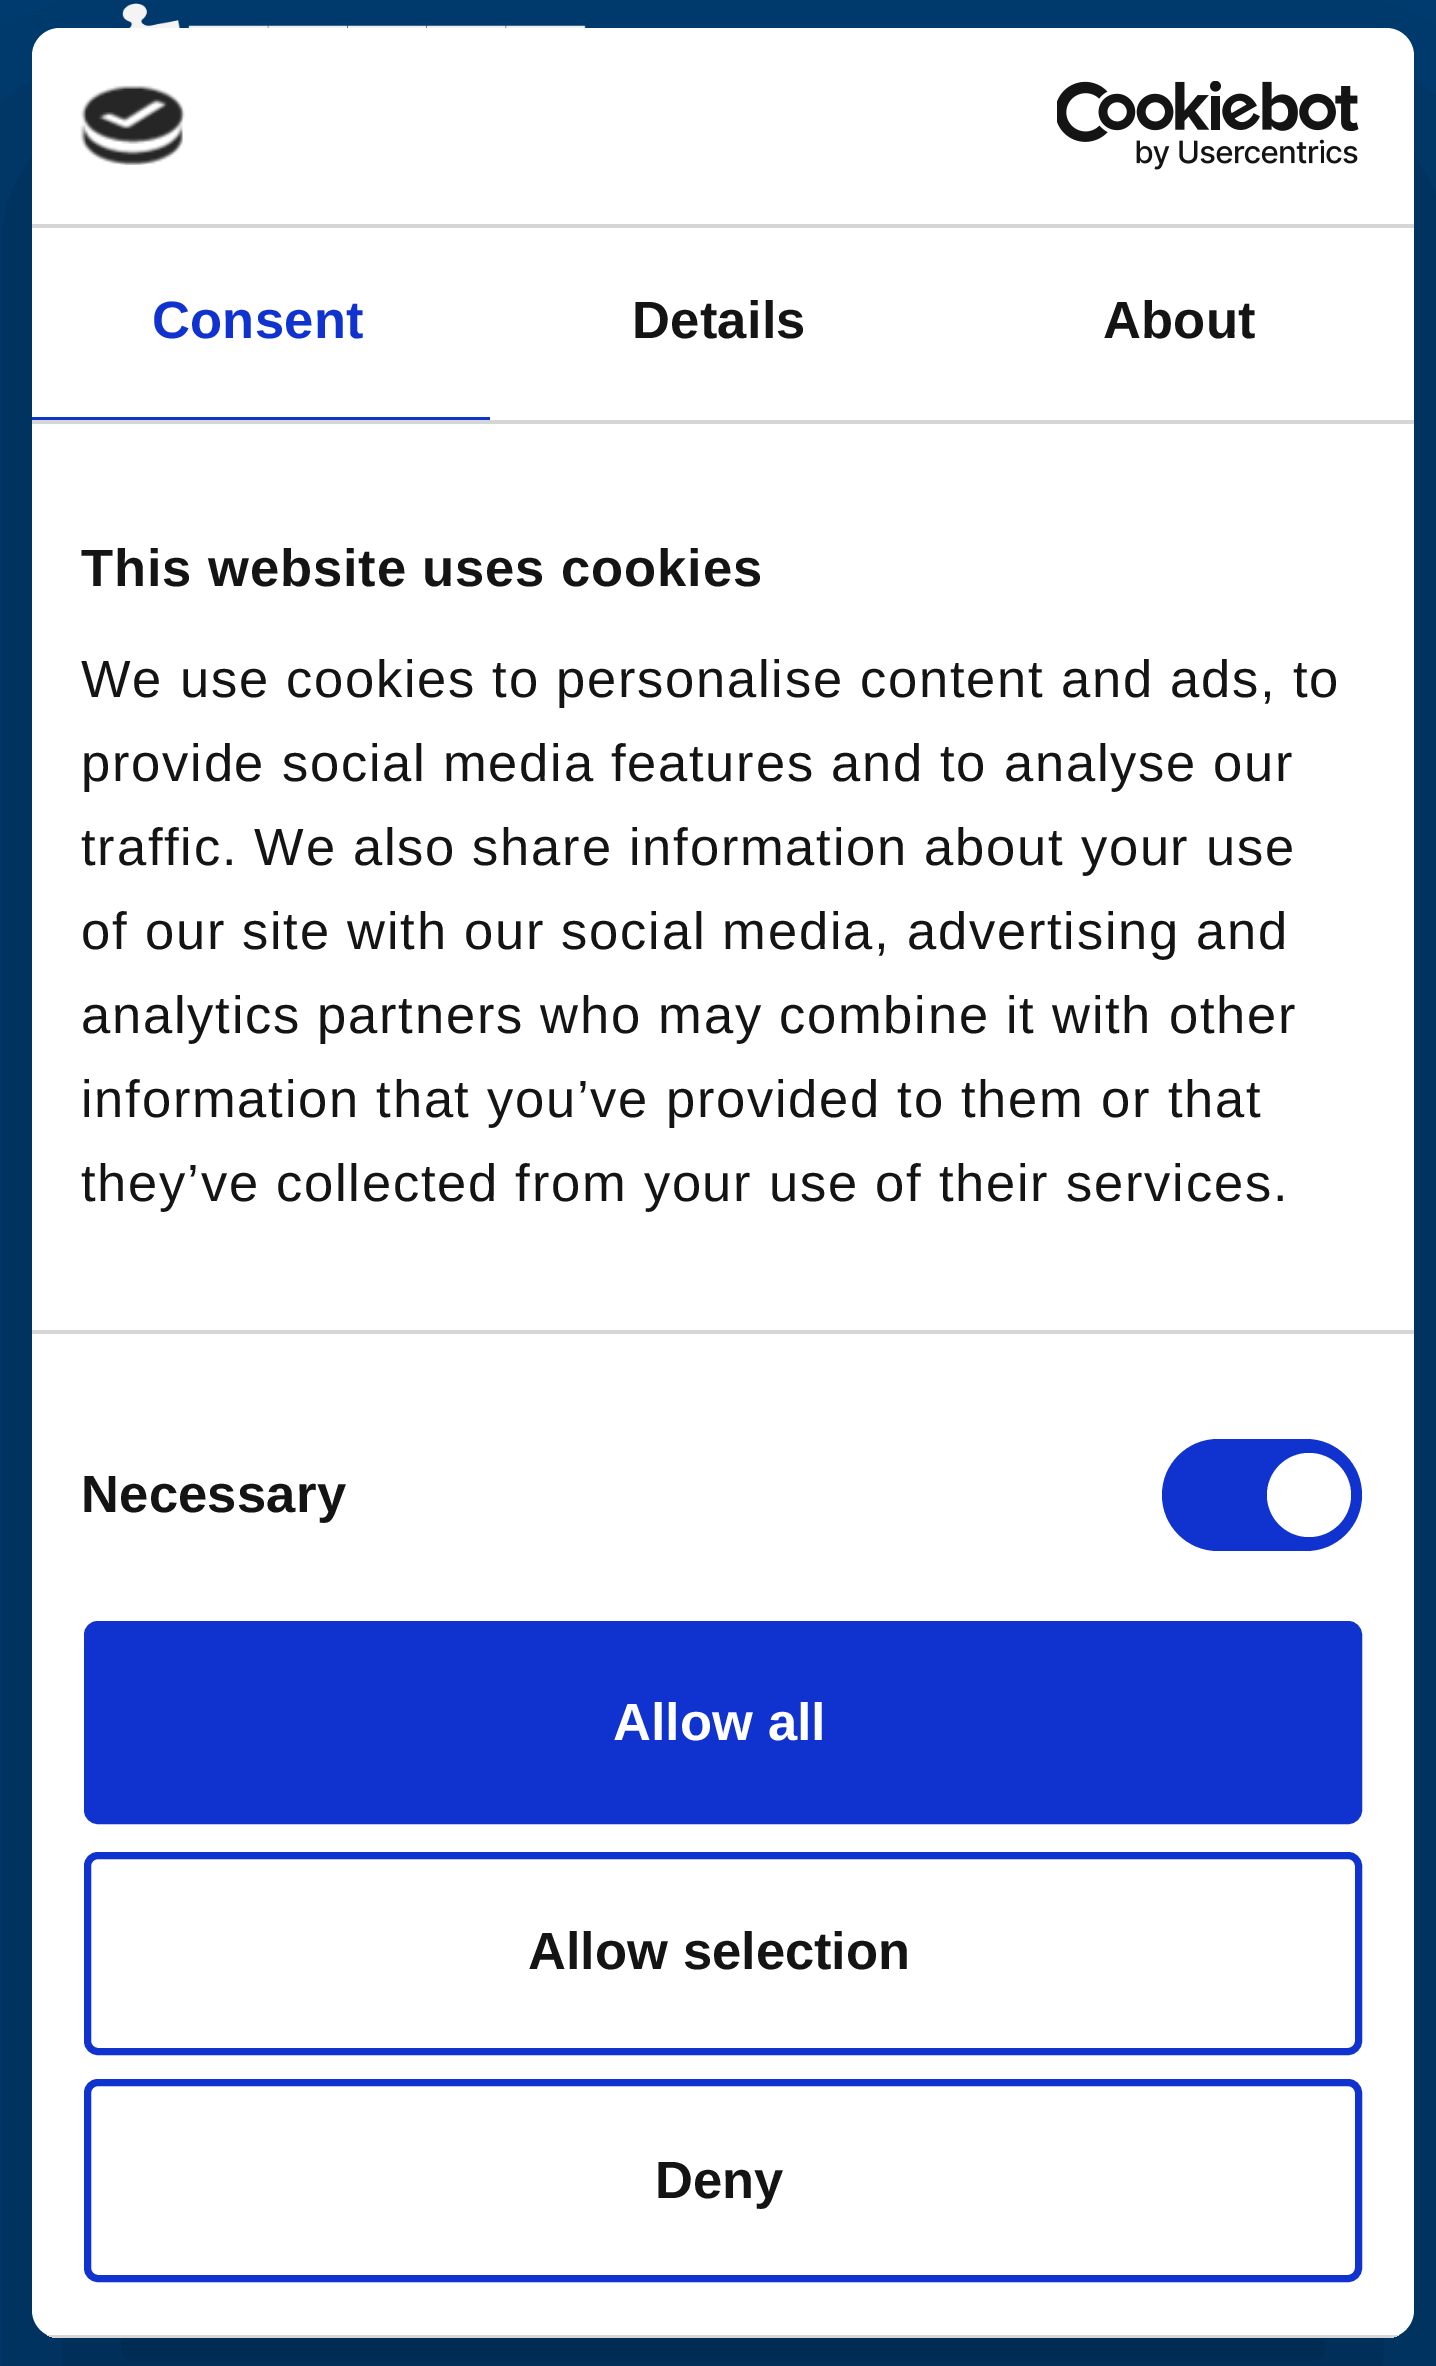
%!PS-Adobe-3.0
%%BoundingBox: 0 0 1436 2366
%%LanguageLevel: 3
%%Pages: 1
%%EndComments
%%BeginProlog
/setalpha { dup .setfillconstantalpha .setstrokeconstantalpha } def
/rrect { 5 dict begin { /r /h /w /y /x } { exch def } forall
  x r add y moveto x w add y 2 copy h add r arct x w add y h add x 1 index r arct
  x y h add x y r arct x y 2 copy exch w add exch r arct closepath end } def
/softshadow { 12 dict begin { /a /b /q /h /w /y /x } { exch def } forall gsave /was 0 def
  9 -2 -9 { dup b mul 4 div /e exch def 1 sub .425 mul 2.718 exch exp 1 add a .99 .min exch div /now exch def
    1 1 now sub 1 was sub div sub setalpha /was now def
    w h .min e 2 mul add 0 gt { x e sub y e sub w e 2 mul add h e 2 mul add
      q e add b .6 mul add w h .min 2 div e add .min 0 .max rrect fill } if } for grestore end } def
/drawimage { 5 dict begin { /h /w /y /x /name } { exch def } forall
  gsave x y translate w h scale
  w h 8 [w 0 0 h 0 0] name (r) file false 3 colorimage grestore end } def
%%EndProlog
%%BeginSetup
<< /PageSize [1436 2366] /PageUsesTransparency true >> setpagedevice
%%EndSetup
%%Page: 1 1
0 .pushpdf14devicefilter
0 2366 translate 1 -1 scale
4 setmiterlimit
0 0.235 0.443 setrgbcolor
0 0 1436 2366 rectfill
(images/1.raw) 122 3 464 25 drawimage
gsave
newpath 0 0 moveto 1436 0 lineto 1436 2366 lineto 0 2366 lineto closepath 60 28 moveto 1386 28 lineto 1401.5 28 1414 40.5 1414 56 curveto 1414 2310 lineto 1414 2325.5 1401.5 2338 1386 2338 curveto 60 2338 lineto 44.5 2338 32 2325.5 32 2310 curveto 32 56 lineto 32 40.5 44.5 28 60 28 curveto closepath eoclip newpath
0 setgray
32 140 1382 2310 28 119 0.3 softshadow
grestore
1 setgray
32 28 1382 2310 28 rrect fill
0.839 setgray
32 224 1382 4 rectfill
(images/2.raw) 80 85 105 80 drawimage
(images/3.raw) 1057 81 302 89 drawimage
32 420 1382 4 rectfill
0.063 0.196 0.812 setrgbcolor
32 417 458 3 rectfill
0.839 setgray
32 1330 1382 4 rectfill
0.063 0.196 0.812 setrgbcolor
1162 1439 200 112 56 rrect fill
1 setgray
newpath 1309 1495 42 0 360 arc closepath fill
gsave
32 28 1382 2310 28 rrect clip newpath
0.839 setgray
47 2335 1352 3 rectfill
grestore
0.063 0.196 0.812 setrgbcolor
87.5 1624.5 1271 196 10.5 rrect gsave fill grestore
7 setlinewidth
stroke
87.5 1855.5 1271 196 10.5 rrect stroke
87.5 2082.5 1271 196 10.5 rrect stroke
/LiberationSans-Bold [52.5 0 0 -52.5 0 0] selectfont
152 338 moveto 0.25 0 (Consent) ashow
0.078 setgray
632 338 moveto 0.25 0 (Details) ashow
1103 338 moveto 0.25 0 (About) ashow
81 586 moveto 0.9 0 (This website uses cookies) ashow
/LiberationSans-Regular [52.5 0 0 -52.5 0 0] selectfont
81 697 moveto 1.75 0 (We use cookies to personalise content and ads, to) ashow
81 781 moveto 1.75 0 (provide social media features and to analyse our) ashow
81 865 moveto 1.75 0 (traffic. We also share information about your use) ashow
81 949 moveto 1.75 0 (of our site with our social media, advertising and) ashow
81 1033 moveto 1.75 0 (analytics partners who may combine it with other) ashow
81 1117 moveto 1.75 0 (information that you’ve provided to them or that) ashow
81 1201 moveto 1.75 0 (they’ve collected from your use of their services.) ashow
/LiberationSans-Bold [52.5 0 0 -52.5 0 0] selectfont
81 1512 moveto 0.25 0 (Necessary) ashow
1 setgray
613 1740 moveto (Allow all) show
0.078 setgray
528 1969 moveto (Allow selection) show
655 2198 moveto (Deny) show
.poppdf14devicefilter showpage
%%EOF
